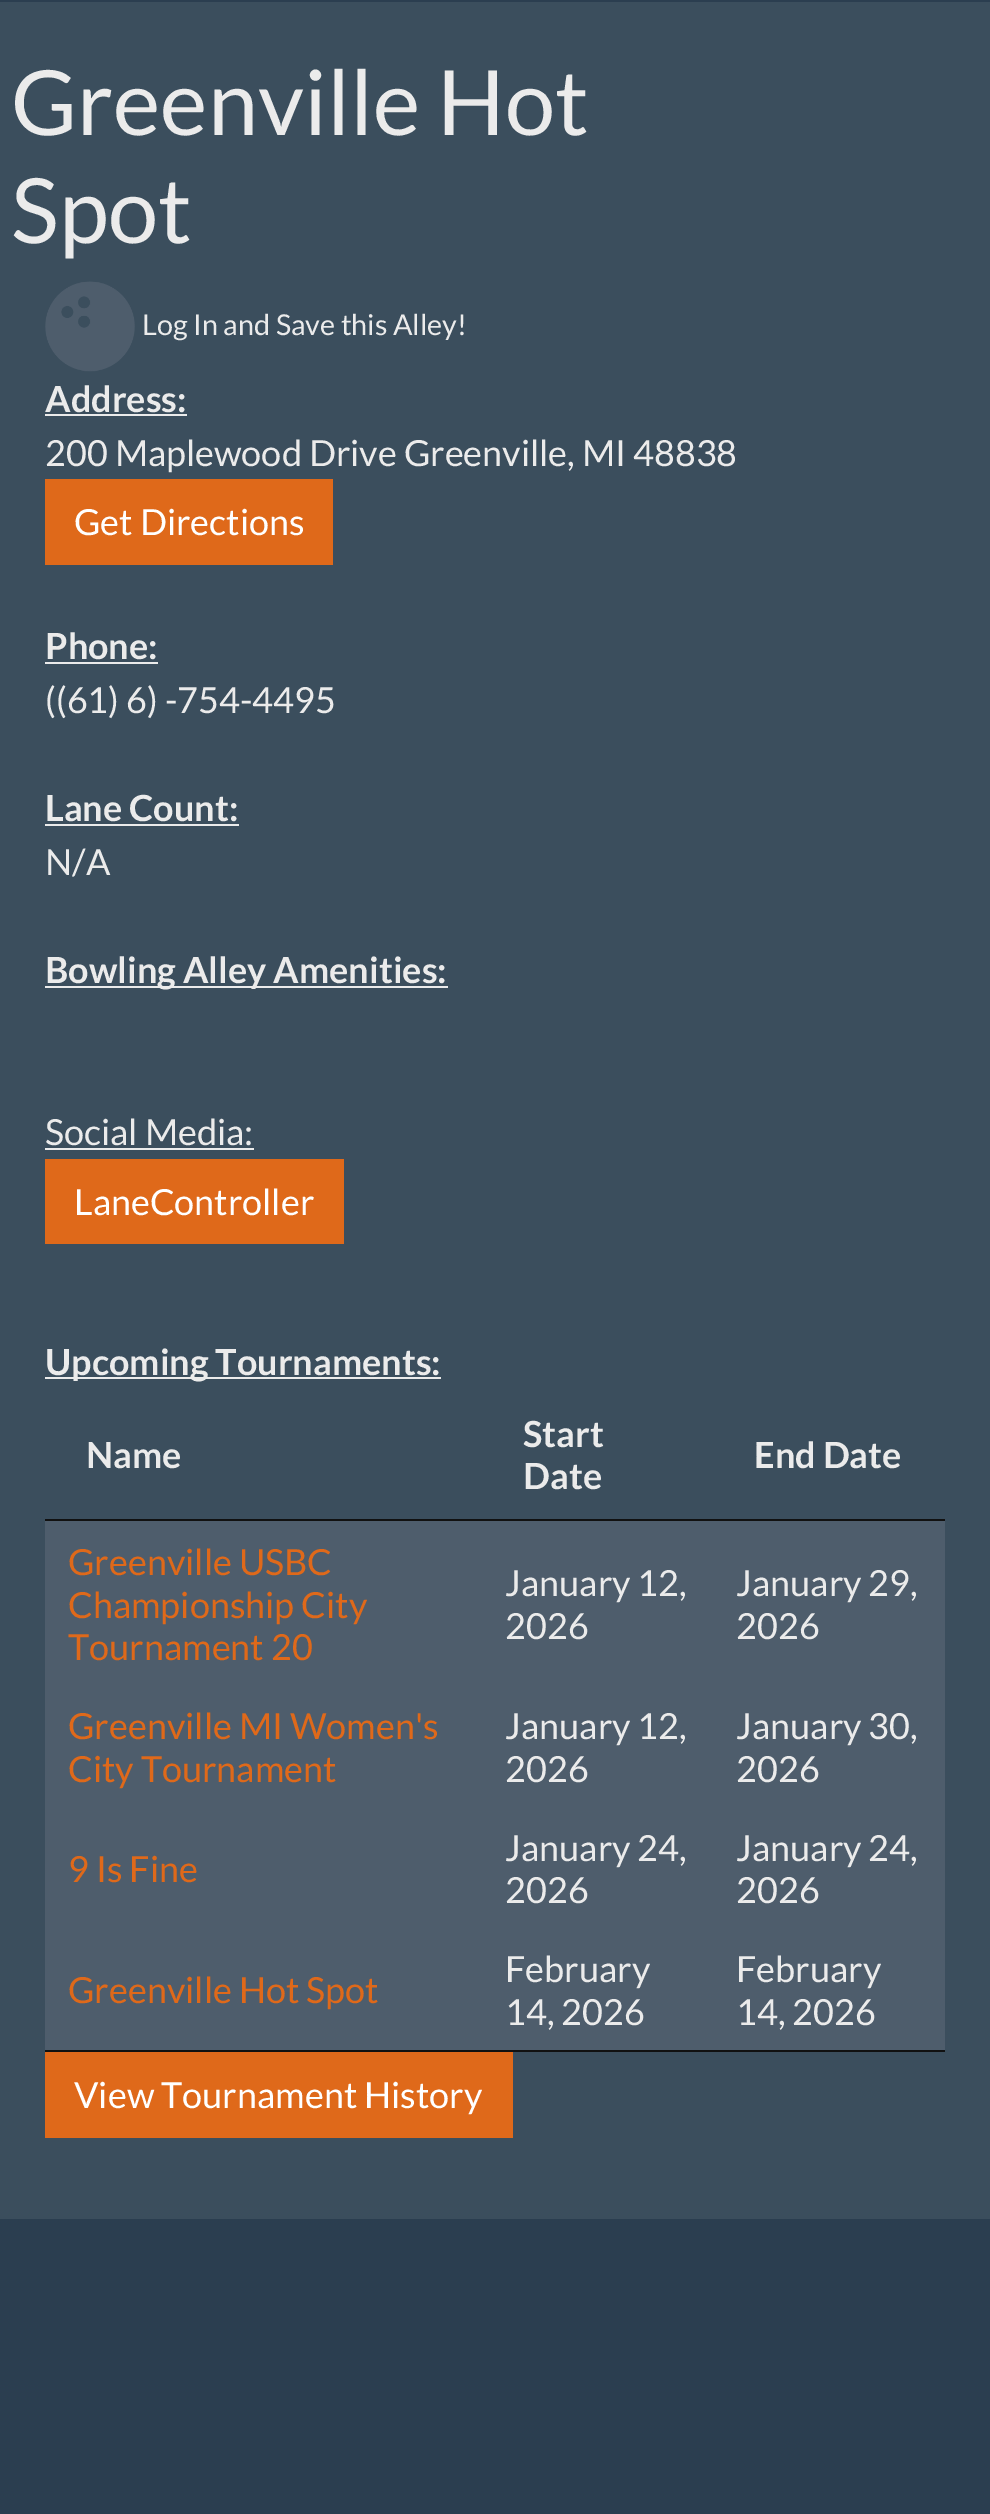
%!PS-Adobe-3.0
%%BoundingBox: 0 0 990 2514
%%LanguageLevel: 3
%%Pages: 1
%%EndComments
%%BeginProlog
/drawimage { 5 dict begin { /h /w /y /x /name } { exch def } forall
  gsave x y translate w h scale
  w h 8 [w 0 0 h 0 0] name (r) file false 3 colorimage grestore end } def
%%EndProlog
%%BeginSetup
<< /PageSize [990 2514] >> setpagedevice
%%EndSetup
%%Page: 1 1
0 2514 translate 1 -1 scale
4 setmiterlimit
0.169 0.243 0.314 setrgbcolor
0 0 990 2514 rectfill
0.231 0.306 0.365 setrgbcolor
0 2 990 2217 rectfill
(images/1.raw) 45 281 90 91 drawimage
0.922 setgray
45 414 142 2 rectfill
0.875 0.412 0.102 setrgbcolor
45 479 288 86 rectfill
0.922 setgray
45 662 113 2 rectfill
45 824 194 2 rectfill
45 986 403 2 rectfill
45 1148 209 2 rectfill
0.875 0.412 0.102 setrgbcolor
45 1159 299 85 rectfill
0.922 setgray
45 1377 396 2 rectfill
0.067 setgray
45 2050 900 2 rectfill
45 1519 900 2 rectfill
0.306 0.365 0.424 setrgbcolor
45 1521 900 529 rectfill
0.875 0.412 0.102 setrgbcolor
45 2052 468 86 rectfill
/Lato-Regular [90 0 0 -90 0 0] selectfont
0.922 setgray
11 135 moveto (Greenville Hot) show
11 243 moveto (Spot) show
/Lato-Regular [28.75 0 0 -28.75 0 0] selectfont
142 335 moveto (Log In and Save this Alley!) show
/Lato-Bold [36 0 0 -36 0 0] selectfont
45 412 moveto (Address:) show
/Lato-Regular [36 0 0 -36 0 0] selectfont
45 466 moveto (200 Maplewood Drive Greenville, MI 48838) show
1 setgray
74 535 moveto (Get Directions) show
/Lato-Bold [36 0 0 -36 0 0] selectfont
0.922 setgray
45 659 moveto (Phone:) show
/Lato-Regular [36 0 0 -36 0 0] selectfont
45 713 moveto (\(\(61\) 6\) -754-4495) show
/Lato-Bold [36 0 0 -36 0 0] selectfont
45 821 moveto (Lane Count:) show
/Lato-Regular [36 0 0 -36 0 0] selectfont
45 875 moveto (N/A) show
/Lato-Bold [36 0 0 -36 0 0] selectfont
45 983 moveto (Bowling Alley Amenities:) show
/Lato-Regular [36 0 0 -36 0 0] selectfont
45 1145 moveto (Social Media:) show
1 setgray
74 1215 moveto (LaneController) show
/Lato-Bold [36 0 0 -36 0 0] selectfont
0.922 setgray
45 1375 moveto (Upcoming Tournaments:) show
86 1468 moveto (Name) show
523 1447 moveto (Start) show
523 1489 moveto (Date) show
754 1468 moveto (End Date) show
/Lato-Regular [36 0 0 -36 0 0] selectfont
0.875 0.412 0.102 setrgbcolor
68 1575 moveto (Greenville USBC) show
68 1618 moveto (Championship City) show
68 1660 moveto (Tournament 20) show
0.922 setgray
505 1596 moveto (January 12,) show
505 1639 moveto (2026) show
736 1596 moveto (January 29,) show
736 1639 moveto (2026) show
0.875 0.412 0.102 setrgbcolor
68 1739 moveto (Greenville MI Women's) show
68 1782 moveto (City Tournament) show
0.922 setgray
505 1739 moveto (January 12,) show
505 1782 moveto (2026) show
736 1739 moveto (January 30,) show
736 1782 moveto (2026) show
0.875 0.412 0.102 setrgbcolor
68 1882 moveto (9 Is Fine) show
0.922 setgray
505 1861 moveto (January 24,) show
505 1903 moveto (2026) show
736 1861 moveto (January 24,) show
736 1903 moveto (2026) show
0.875 0.412 0.102 setrgbcolor
68 2003 moveto (Greenville Hot Spot) show
0.922 setgray
505 1982 moveto (February) show
505 2025 moveto (14, 2026) show
736 1982 moveto (February) show
736 2025 moveto (14, 2026) show
1 setgray
74 2108 moveto (View Tournament History) show
showpage
%%EOF
